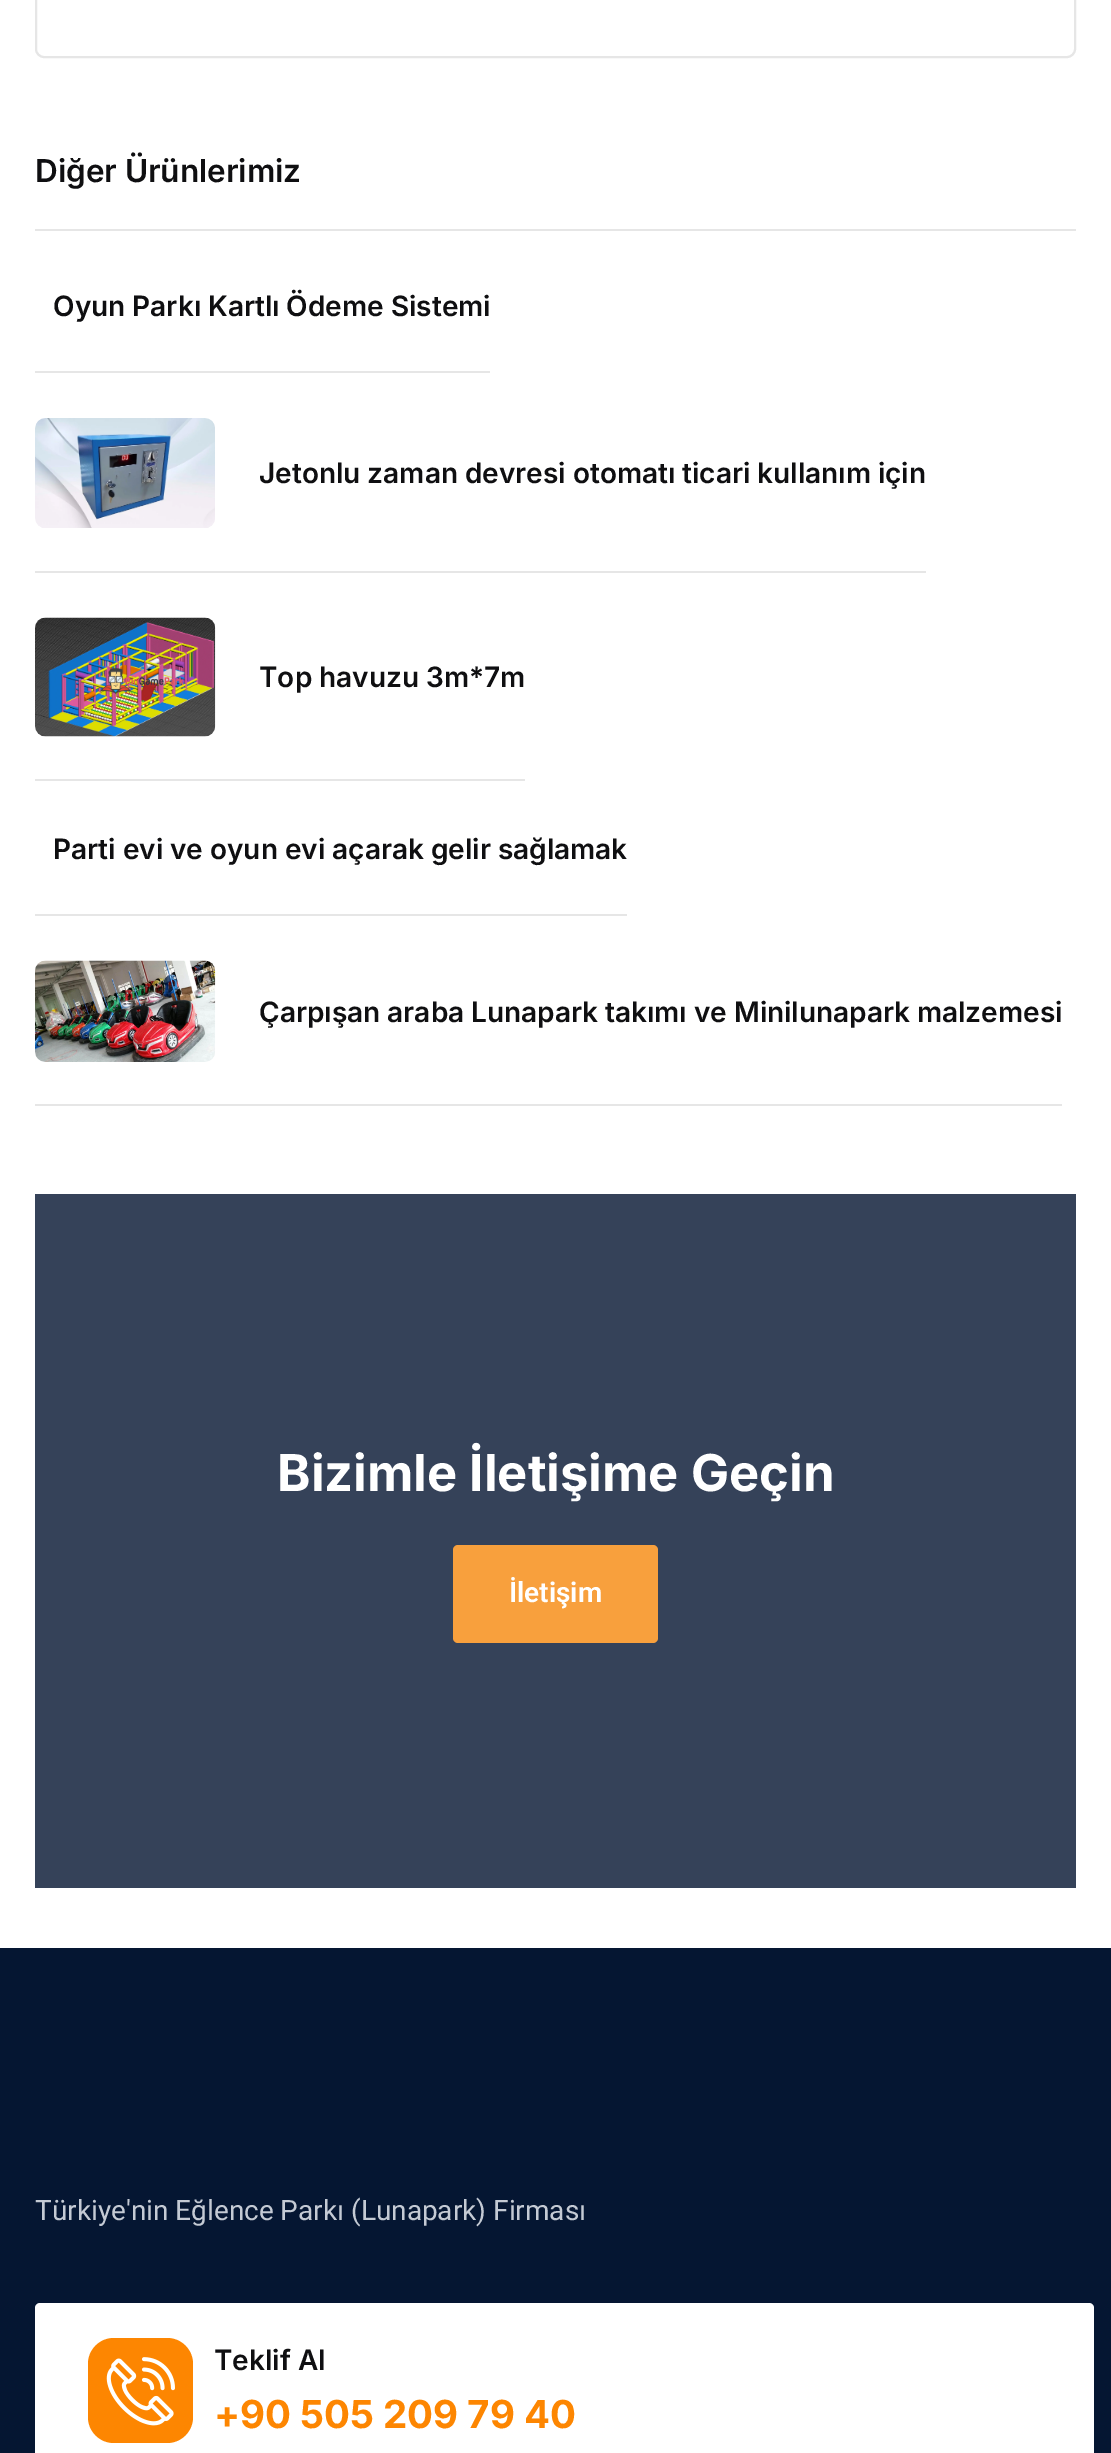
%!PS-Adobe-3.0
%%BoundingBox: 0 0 1111 2453
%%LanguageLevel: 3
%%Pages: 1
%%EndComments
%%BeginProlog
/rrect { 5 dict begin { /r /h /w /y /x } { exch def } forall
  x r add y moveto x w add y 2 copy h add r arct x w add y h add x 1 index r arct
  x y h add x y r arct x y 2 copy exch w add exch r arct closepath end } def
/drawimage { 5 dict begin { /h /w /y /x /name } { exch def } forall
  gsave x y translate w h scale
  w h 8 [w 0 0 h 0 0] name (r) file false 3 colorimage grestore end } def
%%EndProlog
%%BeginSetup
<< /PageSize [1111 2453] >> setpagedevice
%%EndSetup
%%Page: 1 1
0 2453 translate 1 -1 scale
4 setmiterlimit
1 setgray
0 0 1111 2453 rectfill
0.902 setgray
2 setlinewidth
36 -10 1039 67 8 rrect stroke
35 229 1041 2 rectfill
35 371 455 2 rectfill
35 571 891 2 rectfill
(images/1.raw) 35 418 180 110 drawimage
35 779 490 2 rectfill
(images/2.raw) 35 617 181 120 drawimage
35 914 592 2 rectfill
35 1104 1027 2 rectfill
(images/3.raw) 35 960 181 102 drawimage
0.208 0.259 0.349 setrgbcolor
35 1194 1041 694 rectfill
0.973 0.627 0.239 setrgbcolor
453 1545 205 98 5 rrect fill
0.02 0.086 0.196 setrgbcolor
0 1948 1111 505 rectfill
1 setgray
35 2303 1059 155 5 rrect fill
0.992 0.525 0.004 setrgbcolor
88 2338 105 105 26 rrect fill
(images/4.raw) 106 2357 69 69 drawimage
/Inter-SemiBold [31.5 0 0 -31.5 0 0] selectfont
0.059 0.059 0.067 setrgbcolor
35 182 moveto (Diğer Ürünlerimiz) show
/Inter-SemiBold [28 0 0 -28 0 0] selectfont
53 316 moveto (Oyun Parkı Kartlı Ödeme Sistemi) show
259 483 moveto (Jetonlu zaman devresi otomatı ticari kullanım için) show
259 687 moveto (Top havuzu 3m*7m) show
53 859 moveto (Parti evi ve oyun evi açarak gelir sağlamak) show
259 1022 moveto (Çarpışan araba Lunapark takımı ve Minilunapark malzemesi) show
/Inter-Bold [50.75 0 0 -50.75 0 0] selectfont
1 setgray
277 1491 moveto (Bizimle İletişime Geçin) show
/Roboto-SemiBold [28 0 0 -28 0 0] selectfont
509 1602 moveto (İletişim) show
/Roboto-Regular [28 0 0 -28 0 0] selectfont
0.769 0.792 0.831 setrgbcolor
35 2220 moveto (Türkiye'nin Eğlence Parkı \(Lunapark\) Firması) show
/Inter-SemiBold [28 0 0 -28 0 0] selectfont
0.059 0.059 0.067 setrgbcolor
214 2370 moveto (Teklif Al) show
/Inter-Bold [38.5 0 0 -38.5 0 0] selectfont
0.992 0.525 0.004 setrgbcolor
214 2428 moveto (+90 505 209 79 40) show
showpage
%%EOF
